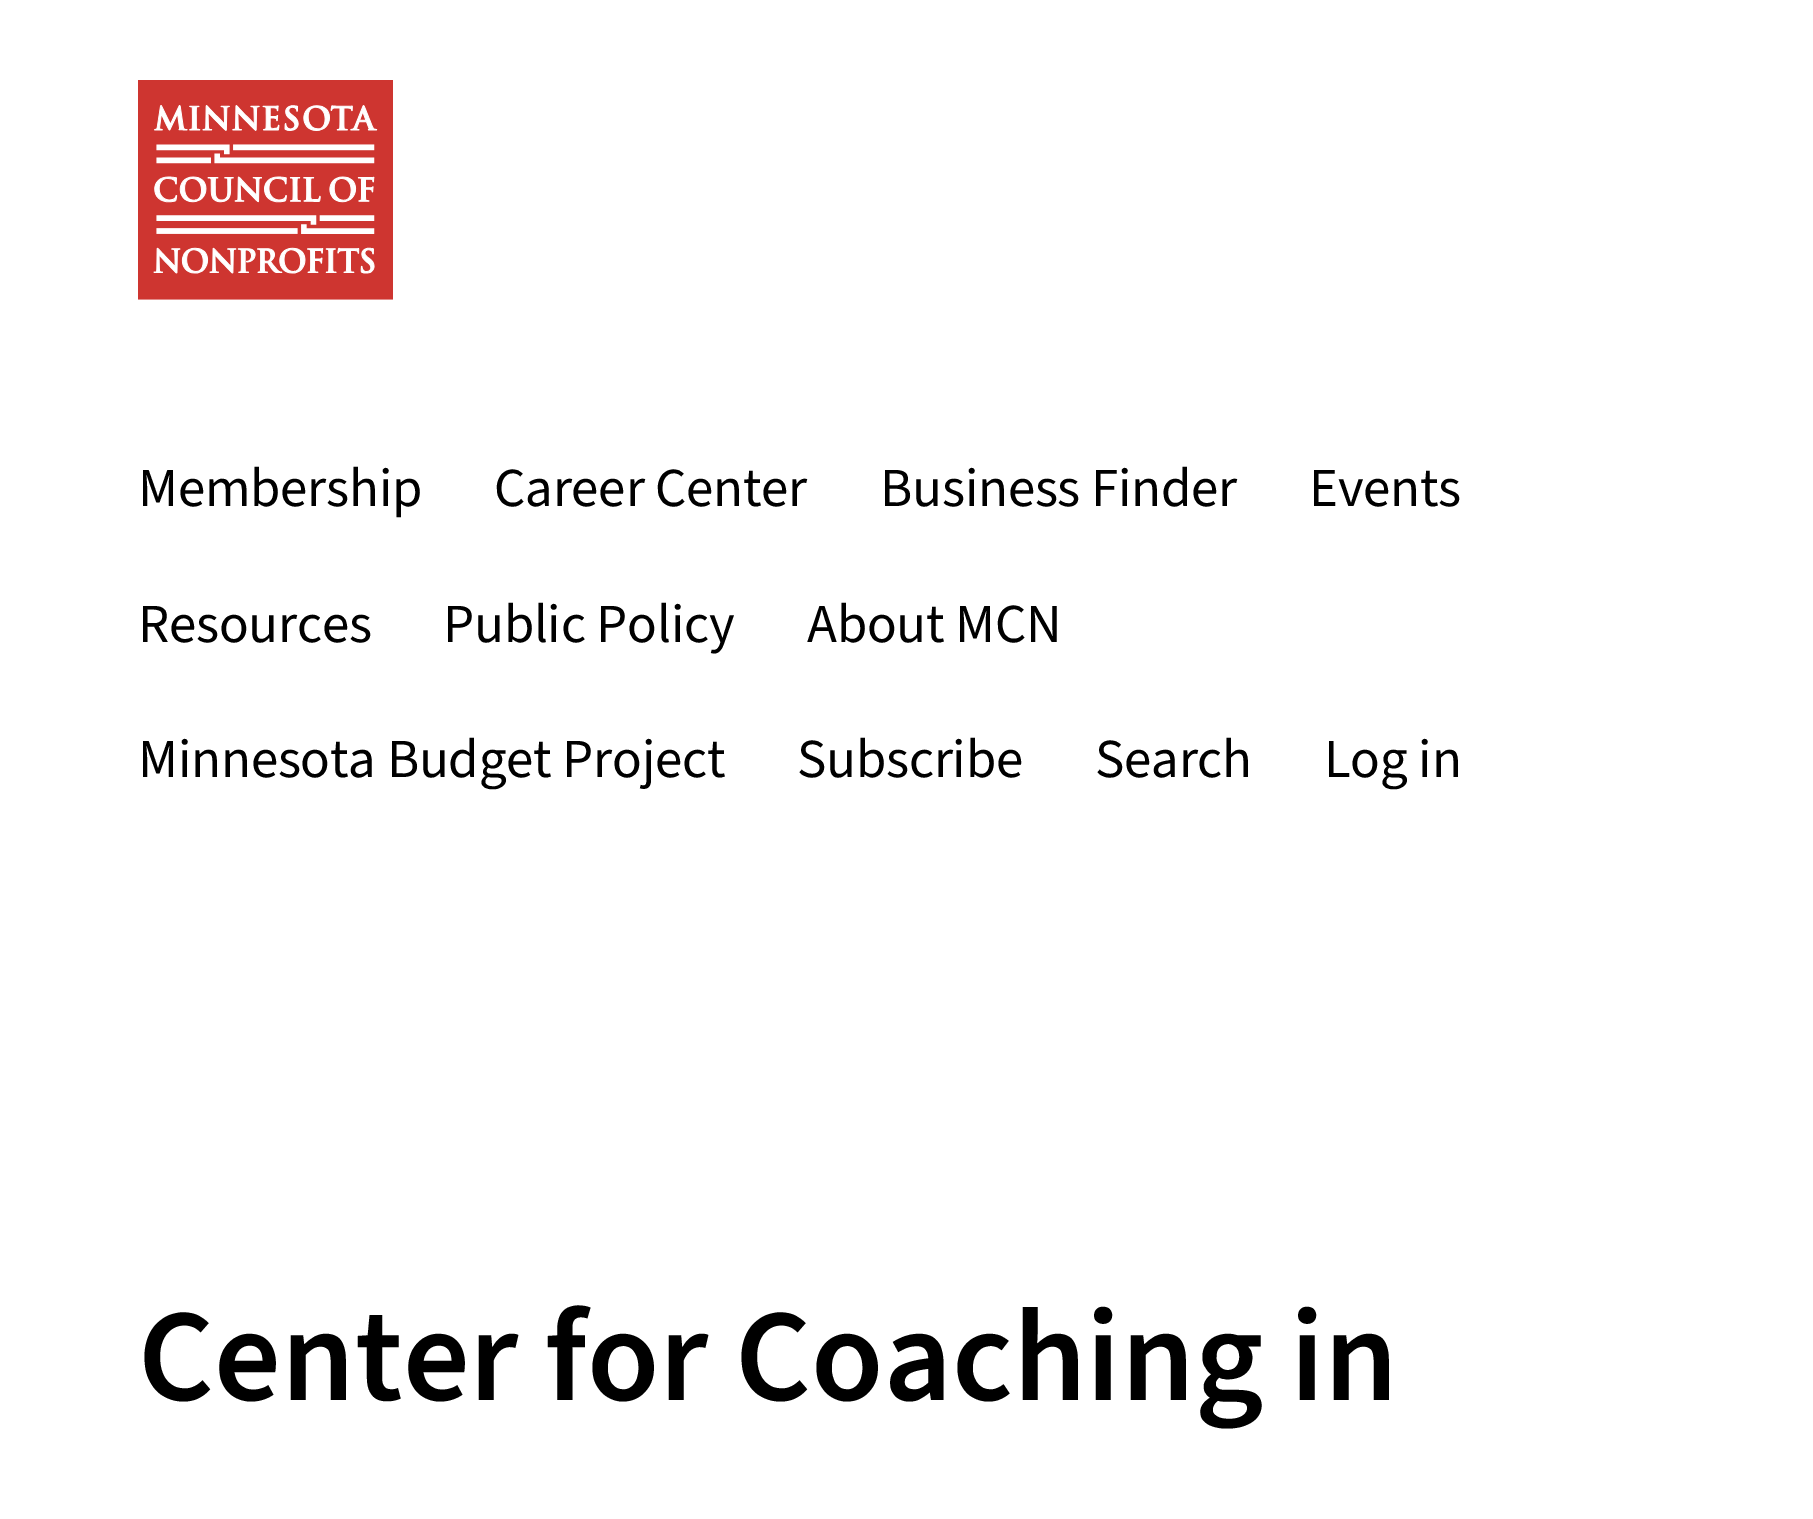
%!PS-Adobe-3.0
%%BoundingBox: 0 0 1813 1519
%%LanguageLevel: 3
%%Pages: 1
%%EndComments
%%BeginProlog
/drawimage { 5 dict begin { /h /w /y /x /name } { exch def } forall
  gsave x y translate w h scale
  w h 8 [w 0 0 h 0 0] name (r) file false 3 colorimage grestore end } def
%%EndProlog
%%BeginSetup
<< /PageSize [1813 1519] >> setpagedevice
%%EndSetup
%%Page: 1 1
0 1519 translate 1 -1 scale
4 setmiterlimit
1 setgray
0 0 1813 1519 rectfill
(images/1.raw) 138 80 255 220 drawimage
/SourceSans3-Regular [55 0 0 -55 0 0] selectfont
0 setgray
138 506 moveto -0.25 0 (Membership) ashow
494 506 moveto -0.25 0 (Career Center) ashow
880 506 moveto -0.25 0 (Business Finder) ashow
1309 506 moveto -0.25 0 (Events) ashow
138 642 moveto -0.25 0 (Resources) ashow
443 642 moveto -0.25 0 (Public Policy) ashow
807 642 moveto -0.25 0 (About MCN) ashow
138 777 moveto -0.25 0 (Minnesota Budget Project) ashow
797 777 moveto -0.25 0 (Subscribe) ashow
1095 777 moveto -0.25 0 (Search) ashow
1324 777 moveto -0.25 0 (Log in) ashow
/SourceSans3-SemiBold [132 0 0 -132 0 0] selectfont
138 1400 moveto (Center for Coaching in) show
showpage
%%EOF
